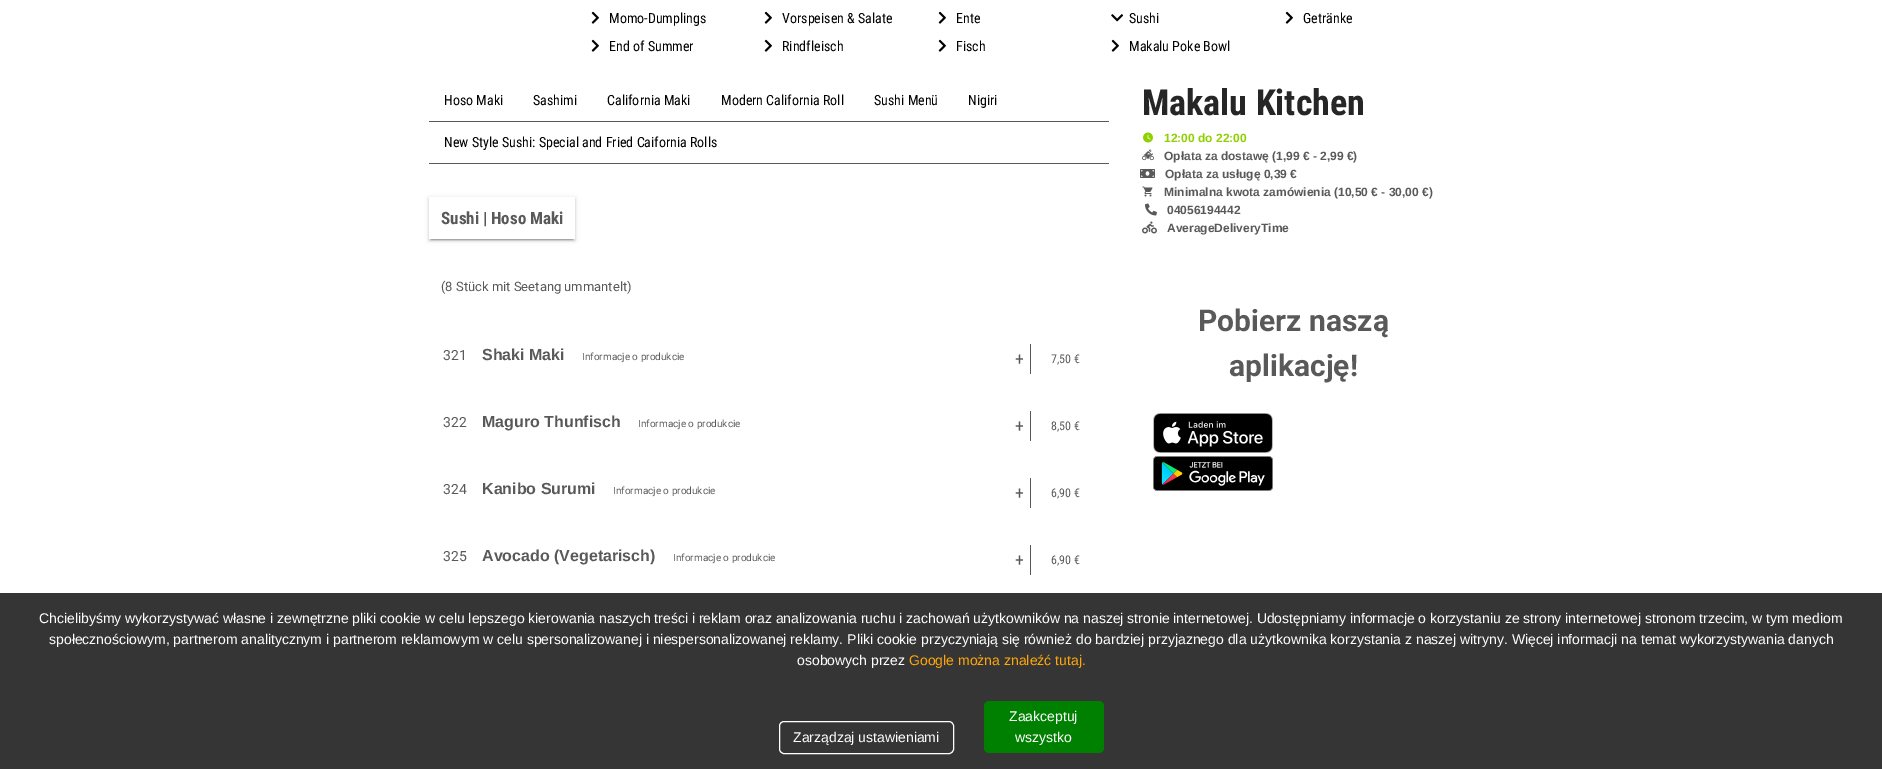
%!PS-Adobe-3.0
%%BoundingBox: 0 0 1882 769
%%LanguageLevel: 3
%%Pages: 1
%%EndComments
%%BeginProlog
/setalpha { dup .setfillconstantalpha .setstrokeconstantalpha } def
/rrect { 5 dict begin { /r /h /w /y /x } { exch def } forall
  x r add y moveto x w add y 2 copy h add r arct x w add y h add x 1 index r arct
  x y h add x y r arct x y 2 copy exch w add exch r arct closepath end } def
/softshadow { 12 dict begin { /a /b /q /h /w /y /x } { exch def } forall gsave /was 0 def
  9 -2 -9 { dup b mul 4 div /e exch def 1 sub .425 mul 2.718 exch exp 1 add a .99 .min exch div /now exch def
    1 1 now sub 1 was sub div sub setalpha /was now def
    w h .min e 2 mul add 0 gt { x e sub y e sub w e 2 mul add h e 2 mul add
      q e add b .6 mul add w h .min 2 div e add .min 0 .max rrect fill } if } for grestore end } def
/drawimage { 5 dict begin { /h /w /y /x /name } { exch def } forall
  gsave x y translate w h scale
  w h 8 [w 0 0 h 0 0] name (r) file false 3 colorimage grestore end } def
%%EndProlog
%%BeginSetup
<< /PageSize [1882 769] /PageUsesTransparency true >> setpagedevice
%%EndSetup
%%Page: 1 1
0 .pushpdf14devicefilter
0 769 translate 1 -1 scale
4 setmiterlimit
1 setgray
0 0 1882 769 rectfill
(images/1.raw) 591 11 8 13 drawimage
(images/1.raw) 764 11 8 13 drawimage
(images/1.raw) 938 11 8 13 drawimage
(images/2.raw) 1111 14 12 8 drawimage
(images/1.raw) 1285 11 8 13 drawimage
(images/1.raw) 591 39 8 13 drawimage
(images/1.raw) 764 39 8 13 drawimage
(images/1.raw) 938 39 8 13 drawimage
(images/1.raw) 1111 39 8 13 drawimage
0.349 setgray
429 121 680 1 rectfill
429 163 680 1 rectfill
gsave
newpath 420 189 moveto 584 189 lineto 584 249 lineto 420 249 lineto closepath 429 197 moveto 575 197 lineto 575 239 lineto 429 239 lineto closepath eoclip newpath
0 setgray
429 198 146 42 0 2.5 0.12 softshadow
grestore
gsave
newpath 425 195 moveto 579 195 lineto 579 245 lineto 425 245 lineto closepath 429 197 moveto 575 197 lineto 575 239 lineto 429 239 lineto closepath eoclip newpath
0 setgray
429 199 146 42 0 1 0.14 softshadow
grestore
gsave
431 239 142 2 rectclip
0 setgray
431 202 142 38 0 0.5 0.2 softshadow
grestore
1030 344 1 30 rectfill
1030 411 1 30 rectfill
1030 478 1 30 rectfill
1030 545 1 30 rectfill
(images/3.raw) 1143 132 10 11 drawimage
(images/4.raw) 1142 149 12 12 drawimage
(images/5.raw) 1140 169 15 9 drawimage
(images/6.raw) 1142 186 11 11 drawimage
(images/7.raw) 1145 203 12 13 drawimage
(images/8.raw) 1142 221 15 13 drawimage
(images/9.raw) 1153 413 120 40 drawimage
(images/10.raw) 1153 456 120 35 drawimage
0.208 setgray
0 593 1882 176 rectfill
1 setgray
779.5 721.5 174 32 4.5 rrect stroke
0 0.502 0 setrgbcolor
984 701 120 52 5 rrect fill
/RobotoCondensed-Regular [14 0 0 -14 0 0] selectfont
0 setgray
609 23 moveto (Momo-Dumplings) show
782 23 moveto (Vorspeisen & Salate) show
956 23 moveto (Ente) show
1129 23 moveto (Sushi) show
1303 23 moveto (Getränke) show
609 51 moveto (End of Summer) show
782 51 moveto (Rindfleisch) show
956 51 moveto (Fisch) show
1129 51 moveto (Makalu Poke Bowl) show
444 105 moveto (Hoso Maki) show
533 105 moveto (Sashimi) show
607 105 moveto (California Maki) show
721 105 moveto (Modern California Roll) show
874 105 moveto (Sushi Menü) show
968 105 moveto (Nigiri) show
444 147 moveto (New Style Sushi: Special and Fried Caifornia Rolls) show
/RobotoCondensed-Bold [17 0 0 -17 0 0] selectfont
0.349 setgray
441 224 moveto (Sushi | Hoso Maki) show
/Roboto-Regular [13 0 0 -13 0 0] selectfont
441 291 moveto (\(8 Stück mit Seetang ummantelt\)) show
/Roboto-Regular [14 0 0 -14 0 0] selectfont
443 360 moveto (321) show
/LiberationSans-Bold [16 0 0 -16 0 0] selectfont
482 360 moveto (Shaki Maki) show
/Roboto-Regular [10 0 0 -10 0 0] selectfont
582 360 moveto (Informacje o produkcie) show
/RobotoCondensed-Regular [18 0 0 -18 0 0] selectfont
1015 365 moveto (+) show
/RobotoCondensed-Regular [12 0 0 -12 0 0] selectfont
1051 363 moveto (7,50 €) show
/Roboto-Regular [14 0 0 -14 0 0] selectfont
443 427 moveto (322) show
/LiberationSans-Bold [16 0 0 -16 0 0] selectfont
482 427 moveto (Maguro Thunfisch) show
/Roboto-Regular [10 0 0 -10 0 0] selectfont
638 427 moveto (Informacje o produkcie) show
/RobotoCondensed-Regular [18 0 0 -18 0 0] selectfont
1015 432 moveto (+) show
/RobotoCondensed-Regular [12 0 0 -12 0 0] selectfont
1051 430 moveto (8,50 €) show
/Roboto-Regular [14 0 0 -14 0 0] selectfont
443 494 moveto (324) show
/LiberationSans-Bold [16 0 0 -16 0 0] selectfont
482 494 moveto (Kanibo Surumi) show
/Roboto-Regular [10 0 0 -10 0 0] selectfont
613 494 moveto (Informacje o produkcie) show
/RobotoCondensed-Regular [18 0 0 -18 0 0] selectfont
1015 499 moveto (+) show
/RobotoCondensed-Regular [12 0 0 -12 0 0] selectfont
1051 497 moveto (6,90 €) show
/Roboto-Regular [14 0 0 -14 0 0] selectfont
443 561 moveto (325) show
/LiberationSans-Bold [16 0 0 -16 0 0] selectfont
482 561 moveto (Avocado \(Vegetarisch\)) show
/Roboto-Regular [10 0 0 -10 0 0] selectfont
673 561 moveto (Informacje o produkcie) show
/RobotoCondensed-Regular [18 0 0 -18 0 0] selectfont
1015 566 moveto (+) show
/RobotoCondensed-Regular [12 0 0 -12 0 0] selectfont
1051 564 moveto (6,90 €) show
/RobotoCondensed-Bold [36 0 0 -36 0 0] selectfont
0.149 setgray
1142 115 moveto (Makalu Kitchen) show
/LiberationSans-Bold [12 0 0 -12 0 0] selectfont
0.561 0.816 0 setrgbcolor
1164 142 moveto (12:00 do 22:00) show
0.349 setgray
1164 160 moveto (Opłata za dostawę \(1,99 € - 2,99 €\)) show
1165 178 moveto (Opłata za usługę 0,39 €) show
1164 196 moveto (Minimalna kwota zamówienia \(10,50 € - 30,00 €\)) show
1167 214 moveto (04056194442) show
1167 232 moveto (AverageDeliveryTime) show
/Roboto-Bold [30 0 0 -30 0 0] selectfont
1198 331 moveto (Pobierz naszą) show
1229 376 moveto (aplikację!) show
/LiberationSans-Regular [14 0 0 -14 0 0] selectfont
1 setgray
39 623 moveto (Chcielibyśmy wykorzystywać własne i zewnętrzne pliki cookie w celu lepszego kierowania naszych treści i reklam oraz analizowania ruchu i zachowań użytkowników na naszej stronie internetowej. Udostępniamy informacje o korzystaniu ze strony internetowej stronom trzecim, w tym mediom) show
49 644 moveto (społecznościowym, partnerom analitycznym i partnerom reklamowym w celu spersonalizowanej i niespersonalizowanej reklamy. Pliki cookie przyczyniają się również do bardziej przyjaznego dla użytkownika korzystania z naszej witryny. Więcej informacji na temat wykorzystywania danych) show
797 665 moveto (osobowych przez) show
1 0.655 0.039 setrgbcolor
909 665 moveto (Google można znaleźć tutaj.) show
1 setgray
793 742 moveto (Zarządzaj ustawieniami) show
1009 721 moveto (Zaakceptuj) show
1015 742 moveto (wszystko) show
.poppdf14devicefilter showpage
%%EOF
